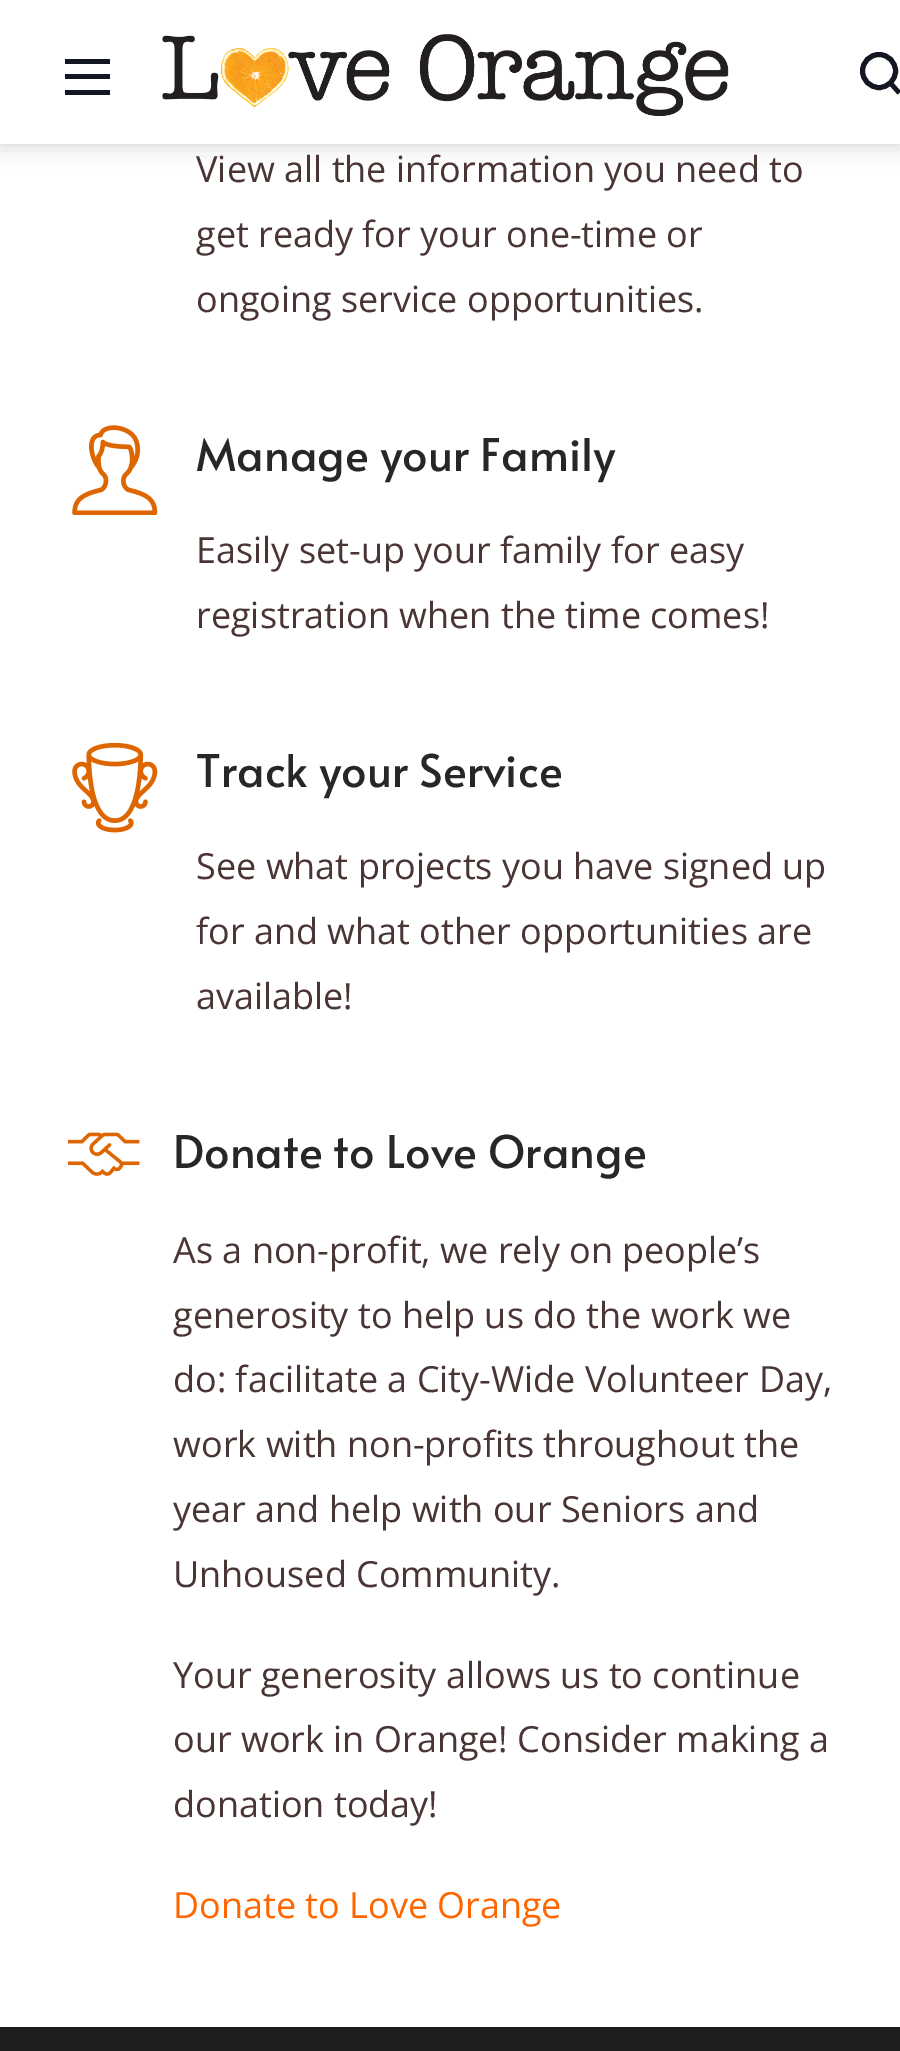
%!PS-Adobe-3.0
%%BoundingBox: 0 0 900 2051
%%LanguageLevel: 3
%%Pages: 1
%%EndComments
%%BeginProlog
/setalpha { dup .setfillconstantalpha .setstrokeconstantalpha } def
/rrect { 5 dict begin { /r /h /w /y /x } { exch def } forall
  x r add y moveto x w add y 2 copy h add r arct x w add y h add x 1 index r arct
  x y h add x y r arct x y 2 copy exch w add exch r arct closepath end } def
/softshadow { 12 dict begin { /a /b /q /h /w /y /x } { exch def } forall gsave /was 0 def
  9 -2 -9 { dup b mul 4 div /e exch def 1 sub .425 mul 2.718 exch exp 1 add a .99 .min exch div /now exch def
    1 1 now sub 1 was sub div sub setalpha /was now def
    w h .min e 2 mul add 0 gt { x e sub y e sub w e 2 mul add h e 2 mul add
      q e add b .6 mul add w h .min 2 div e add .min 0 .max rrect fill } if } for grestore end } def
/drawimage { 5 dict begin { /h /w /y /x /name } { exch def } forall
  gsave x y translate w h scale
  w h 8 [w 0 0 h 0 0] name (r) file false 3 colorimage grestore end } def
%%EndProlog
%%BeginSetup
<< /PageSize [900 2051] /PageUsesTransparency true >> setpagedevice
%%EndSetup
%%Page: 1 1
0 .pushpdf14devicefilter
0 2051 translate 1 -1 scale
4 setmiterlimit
1 setgray
0 0 900 2051 rectfill
0 setgray
0 0 900 144 0 11 0.2 softshadow
1 setgray
0 0 900 144 rectfill
0.071 0.09 0.133 setrgbcolor
65 59 45 5 rectfill
65 74 45 5 rectfill
65 90 45 5 rectfill
(images/1.raw) 162 34 567 82 drawimage
5 setlinewidth
newpath 879 71 16.5 0 360 arc closepath stroke
newpath 893.5 83 moveto 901 91.5 lineto 897.5 94.5 lineto 890 86 lineto closepath fill
(images/2.raw) 72 425 86 90 drawimage
(images/3.raw) 72 742 86 91 drawimage
(images/4.raw) 68 1132 72 44 drawimage
0.118 setgray
0 2027 900 24 rectfill
/OpenSans-Regular [36 0 0 -36 0 0] selectfont
0.29 0.208 0.208 setrgbcolor
196 182 moveto (View all the information you need to) show
196 247 moveto (get ready for your one-time or) show
196 312 moveto (ongoing service opportunities.) show
/Alata-Regular [45 0 0 -45 0 0] selectfont
0.153 setgray
196 471 moveto (Manage your Family) show
/OpenSans-Regular [36 0 0 -36 0 0] selectfont
0.29 0.208 0.208 setrgbcolor
196 563 moveto (Easily set-up your family for easy) show
196 628 moveto (registration when the time comes!) show
/Alata-Regular [45 0 0 -45 0 0] selectfont
0.153 setgray
196 787 moveto (Track your Service) show
/OpenSans-Regular [36 0 0 -36 0 0] selectfont
0.29 0.208 0.208 setrgbcolor
196 879 moveto (See what projects you have signed up) show
196 944 moveto (for and what other opportunities are) show
196 1009 moveto (available!) show
/Alata-Regular [45 0 0 -45 0 0] selectfont
0.153 setgray
173 1168 moveto (Donate to Love Orange) show
/OpenSans-Regular [36 0 0 -36 0 0] selectfont
0.29 0.208 0.208 setrgbcolor
173 1263 moveto (As a non-profit, we rely on people’s) show
173 1328 moveto (generosity to help us do the work we) show
173 1392 moveto (do: facilitate a City-Wide Volunteer Day,) show
173 1457 moveto (work with non-profits throughout the) show
173 1522 moveto (year and help with our Seniors and) show
173 1587 moveto (Unhoused Community.) show
173 1688 moveto (Your generosity allows us to continue) show
173 1752 moveto (our work in Orange! Consider making a) show
173 1817 moveto (donation today!) show
1 0.4 0 setrgbcolor
173 1918 moveto (Donate to Love Orange) show
.poppdf14devicefilter showpage
%%EOF
